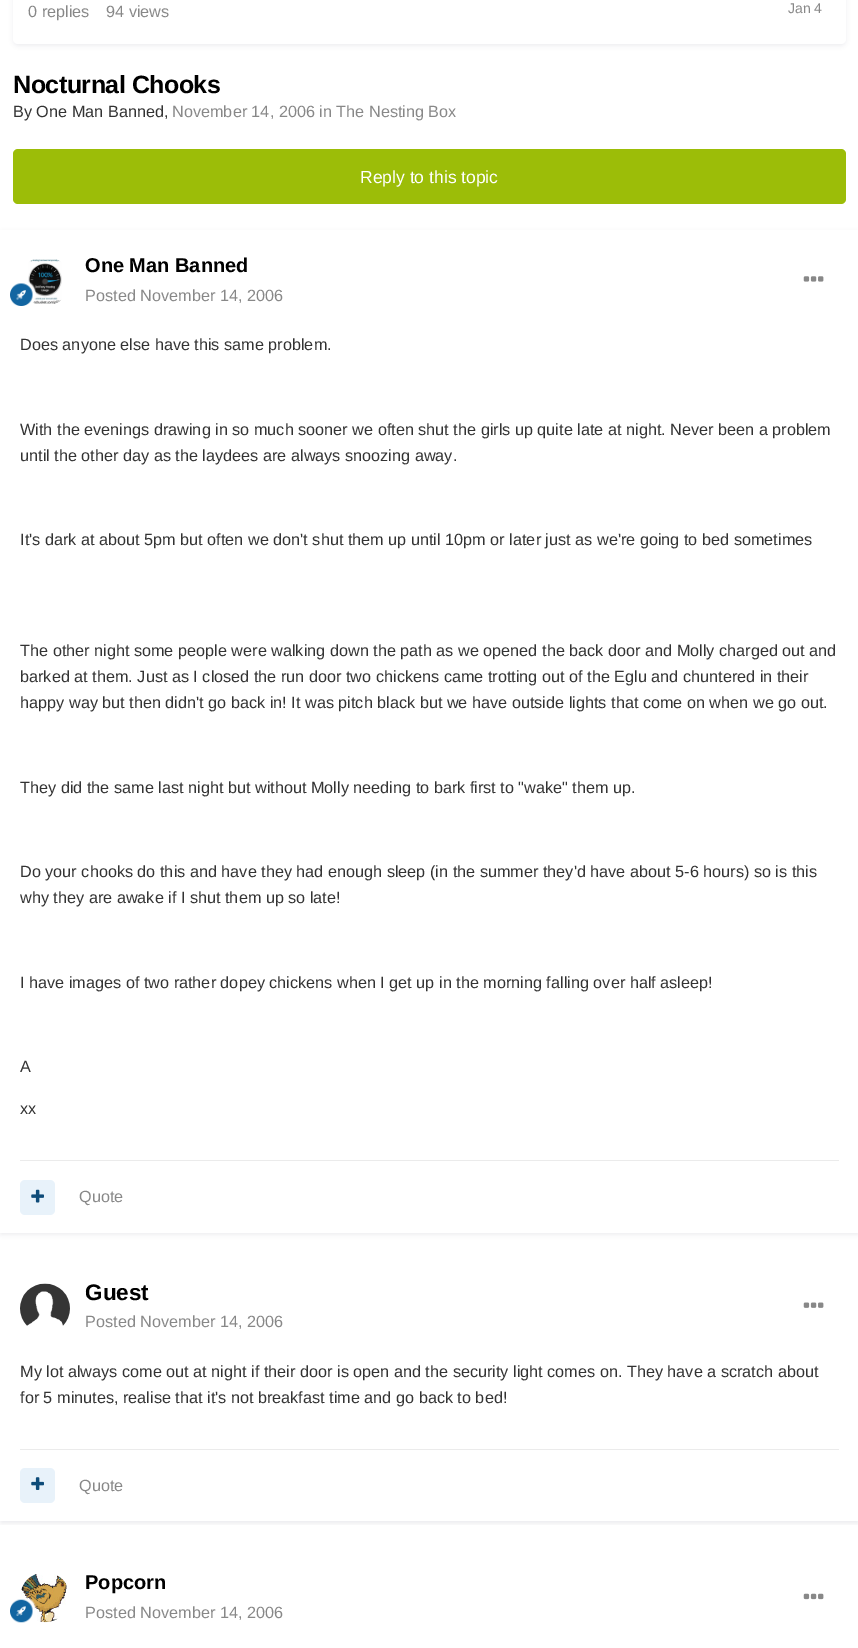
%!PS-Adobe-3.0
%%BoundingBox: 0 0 858 1648
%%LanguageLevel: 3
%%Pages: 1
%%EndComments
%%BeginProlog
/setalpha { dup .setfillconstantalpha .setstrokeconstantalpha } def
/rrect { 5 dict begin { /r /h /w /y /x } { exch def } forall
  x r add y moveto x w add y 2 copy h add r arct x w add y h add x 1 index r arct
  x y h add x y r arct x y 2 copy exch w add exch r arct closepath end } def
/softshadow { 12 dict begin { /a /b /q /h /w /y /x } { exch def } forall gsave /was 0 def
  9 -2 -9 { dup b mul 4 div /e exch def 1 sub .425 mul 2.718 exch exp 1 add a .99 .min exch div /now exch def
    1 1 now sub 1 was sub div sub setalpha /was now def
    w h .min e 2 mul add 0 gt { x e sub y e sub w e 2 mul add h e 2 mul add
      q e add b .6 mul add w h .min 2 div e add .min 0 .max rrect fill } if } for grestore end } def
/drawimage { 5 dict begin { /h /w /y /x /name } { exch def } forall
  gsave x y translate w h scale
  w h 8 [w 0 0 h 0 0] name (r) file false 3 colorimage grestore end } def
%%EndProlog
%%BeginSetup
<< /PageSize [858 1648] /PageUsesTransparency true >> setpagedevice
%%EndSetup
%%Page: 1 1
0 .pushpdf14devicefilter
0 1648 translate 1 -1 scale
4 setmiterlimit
1 setgray
0 0 858 1648 rectfill
0.176 0.216 0.282 setrgbcolor
14 -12 831 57 4 2.5 0.1 softshadow
1 setgray
13 -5 833 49 5 rrect fill
0.612 0.741 0.031 setrgbcolor
13 149 833 55 5 rrect fill
0.176 0.216 0.282 setrgbcolor
1 233 857 1001 0 2.5 0.1 softshadow
1 setgray
0 230 858 1003 rectfill
(images/2.raw) 28 259 34 45 drawimage
(images/1.raw) 10 281 26 25 drawimage
(images/3.raw) 803 276 21 6 drawimage
0.922 setgray
20 1160 819 1 rectfill
0.91 0.949 0.98 setrgbcolor
20 1180 35 35 5 rrect fill
(images/4.raw) 31 1189 13 14 drawimage
gsave
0 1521 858 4 rectclip
0.176 0.216 0.282 setrgbcolor
1 1261 857 262 0 2.5 0.1 softshadow
grestore
(images/5.raw) 20 1283 50 43 drawimage
(images/6.raw) 803 1302 21 6 drawimage
0.922 setgray
20 1449 819 1 rectfill
0.91 0.949 0.98 setrgbcolor
20 1468 35 35 5 rrect fill
(images/7.raw) 31 1477 13 13 drawimage
(images/8.raw) 21 1574 46 49 drawimage
(images/9.raw) 10 1596 26 27 drawimage
(images/10.raw) 803 1593 21 7 drawimage
/LiberationSans-Regular [16.25 0 0 -16.25 0 0] selectfont
0.533 setgray
28 17 moveto (0 replies) show
106 17 moveto (94 views) show
/LiberationSans-Regular [14 0 0 -14 0 0] selectfont
788 13 moveto (Jan 4) show
/LiberationSans-Bold [25 0 0 -25 0 0] selectfont
0 setgray
13 93 moveto -0.5 0 (Nocturnal Chooks) ashow
/LiberationSans-Regular [16.25 0 0 -16.25 0 0] selectfont
0.2 setgray
13 117 moveto (By One Man Banned,) show
0.533 setgray
172 117 moveto (November 14, 2006 in The Nesting Box) show
/LiberationSans-Regular [17.5 0 0 -17.5 0 0] selectfont
1 setgray
360 183 moveto (Reply to this topic) show
/LiberationSans-Bold [20 0 0 -20 0 0] selectfont
0 setgray
85 272 moveto (One Man Banned) show
/LiberationSans-Regular [16.25 0 0 -16.25 0 0] selectfont
0.533 setgray
85 301 moveto (Posted November 14, 2006) show
0.2 setgray
20 350 moveto (Does anyone else have this same problem.) show
20 435 moveto (With the evenings drawing in so much sooner we often shut the girls up quite late at night. Never been a problem) show
20 461 moveto (until the other day as the laydees are always snoozing away.) show
20 545 moveto (It's dark at about 5pm but often we don't shut them up until 10pm or later just as we're going to bed sometimes) show
20 656 moveto (The other night some people were walking down the path as we opened the back door and Molly charged out and) show
20 682 moveto (barked at them. Just as I closed the run door two chickens came trotting out of the Eglu and chuntered in their) show
20 708 moveto (happy way but then didn't go back in! It was pitch black but we have outside lights that come on when we go out.) show
20 793 moveto (They did the same last night but without Molly needing to bark first to "wake" them up.) show
20 877 moveto (Do your chooks do this and have they had enough sleep \(in the summer they'd have about 5-6 hours\) so is this) show
20 903 moveto (why they are awake if I shut them up so late!) show
20 988 moveto (I have images of two rather dopey chickens when I get up in the morning falling over half asleep!) show
20 1072 moveto (A) show
20 1114 moveto (xx) show
0.533 setgray
79 1202 moveto (Quote) show
/LiberationSans-Bold [22.5 0 0 -22.5 0 0] selectfont
0 setgray
85 1300 moveto (Guest) show
/LiberationSans-Regular [16.25 0 0 -16.25 0 0] selectfont
0.533 setgray
85 1327 moveto (Posted November 14, 2006) show
0.2 setgray
20 1377 moveto (My lot always come out at night if their door is open and the security light comes on. They have a scratch about) show
20 1403 moveto (for 5 minutes, realise that it's not breakfast time and go back to bed!) show
0.533 setgray
79 1491 moveto (Quote) show
/LiberationSans-Bold [20 0 0 -20 0 0] selectfont
0 setgray
85 1589 moveto (Popcorn) show
/LiberationSans-Regular [16.25 0 0 -16.25 0 0] selectfont
0.533 setgray
85 1618 moveto (Posted November 14, 2006) show
.poppdf14devicefilter showpage
%%EOF
